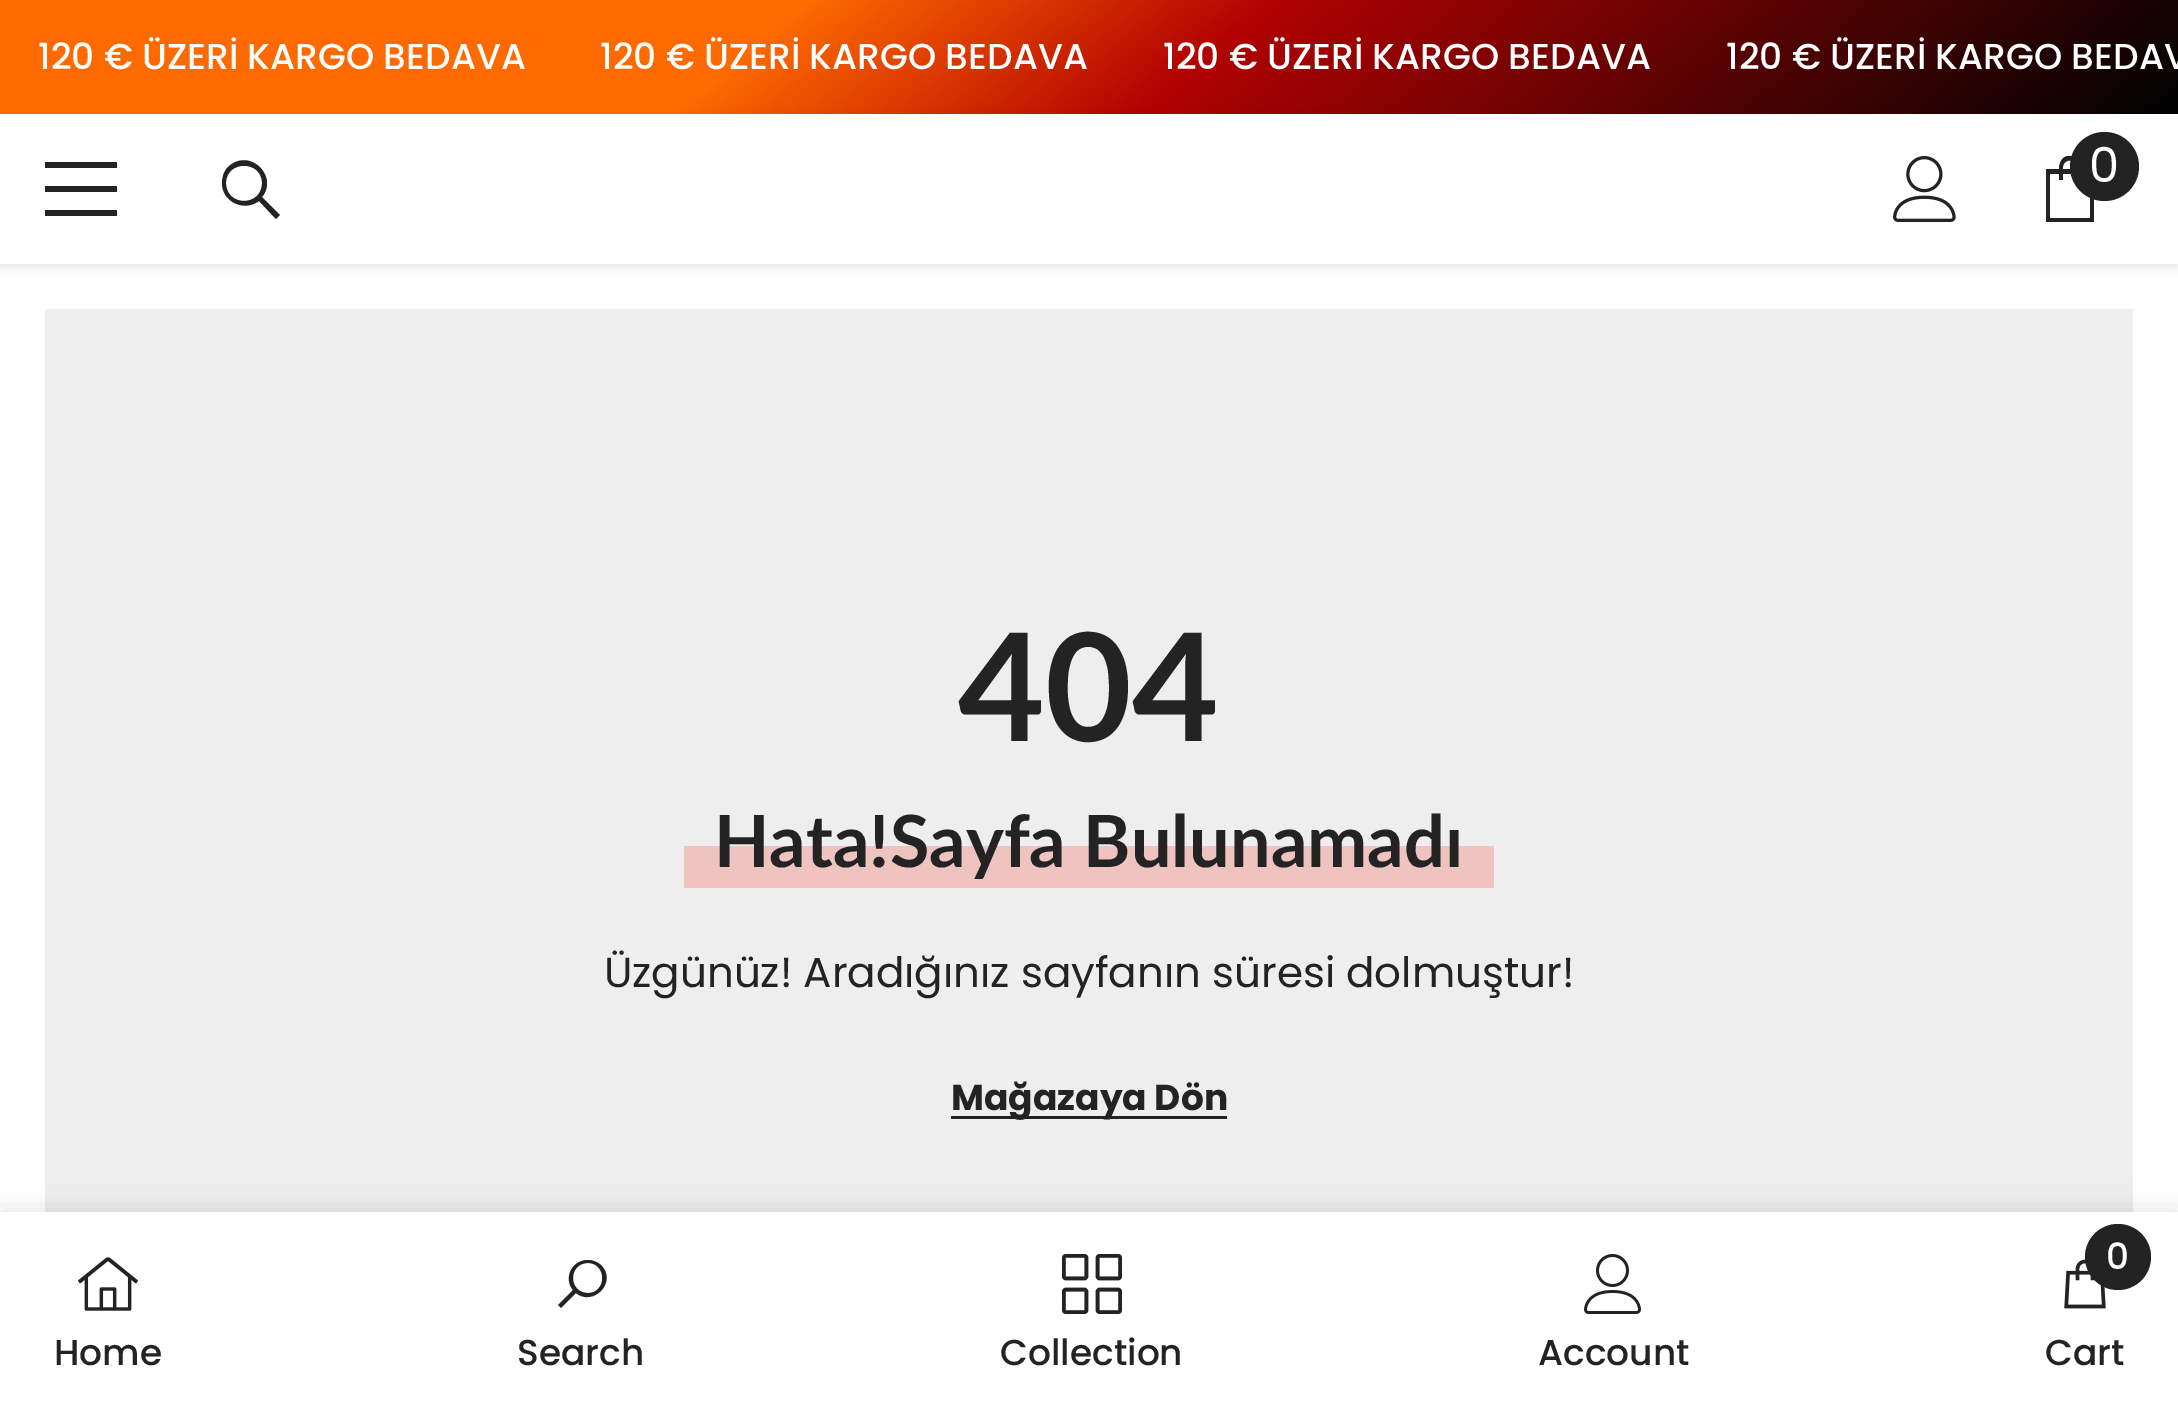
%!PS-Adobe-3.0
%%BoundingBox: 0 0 2178 1402
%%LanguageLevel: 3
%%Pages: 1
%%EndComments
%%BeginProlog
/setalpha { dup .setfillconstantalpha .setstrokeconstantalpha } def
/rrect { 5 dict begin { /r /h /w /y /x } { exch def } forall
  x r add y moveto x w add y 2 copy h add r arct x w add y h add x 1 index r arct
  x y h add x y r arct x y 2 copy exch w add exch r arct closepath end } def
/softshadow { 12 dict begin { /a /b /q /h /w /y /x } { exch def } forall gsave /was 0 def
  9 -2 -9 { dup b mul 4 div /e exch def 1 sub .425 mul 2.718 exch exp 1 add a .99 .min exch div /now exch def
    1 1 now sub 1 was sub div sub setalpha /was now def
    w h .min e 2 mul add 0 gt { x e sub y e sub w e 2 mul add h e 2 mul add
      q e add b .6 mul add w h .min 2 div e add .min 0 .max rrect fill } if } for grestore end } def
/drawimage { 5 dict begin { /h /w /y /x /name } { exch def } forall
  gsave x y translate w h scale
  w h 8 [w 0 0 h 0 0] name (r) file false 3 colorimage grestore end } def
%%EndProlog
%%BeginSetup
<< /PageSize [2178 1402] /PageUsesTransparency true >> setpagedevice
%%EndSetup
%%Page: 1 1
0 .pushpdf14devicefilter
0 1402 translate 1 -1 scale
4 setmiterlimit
1 setgray
0 0 2178 1402 rectfill
gsave newpath 0 0 moveto 2178 0 lineto 2178 114 lineto 0 114 lineto closepath clip newpath
<< /ShadingType 2 /ColorSpace /DeviceRGB /Coords [1567 627 611 -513] /Extend [true true] /Function << /FunctionType 3 /Domain [0 1] /Functions [<< /FunctionType 2 /Domain [0 1] /C0 [0.008 0.008 0.008] /C1 [0.008 0.008 0.008] /N 1 >> << /FunctionType 2 /Domain [0 1] /C0 [0.008 0.008 0.008] /C1 [0.698 0.008 0.008] /N 1 >> << /FunctionType 2 /Domain [0 1] /C0 [0.698 0.008 0.008] /C1 [1 0.416 0] /N 1 >> << /FunctionType 2 /Domain [0 1] /C0 [1 0.416 0] /C1 [1 0.416 0] /N 1 >>] /Bounds [0.01 0.45 0.65] /Encode [0 1 0 1 0 1 0 1] >> >> shfill grestore
gsave
newpath 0 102 moveto 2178 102 lineto 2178 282 lineto 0 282 lineto closepath 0 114 moveto 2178 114 lineto 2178 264 lineto 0 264 lineto closepath eoclip newpath
0 setgray
0 117 2178 150 0 4.5 0.1 softshadow
grestore
0.137 setgray
45 186 72 6 rectfill
45 162 72 6 rectfill
45 210 72 6 rectfill
newpath 222 183 moveto 222 202 244 212 259 201 curveto 276 219 lineto 280 215 lineto 262 197 lineto 279 176 249 147 228 167 curveto 224 171 222 177 222 183 curveto closepath 226 183 moveto 226 160 262 160 262 183 curveto 262 207 226 207 226 183 curveto closepath fill
(images/1.raw) 1893 156 63 66 drawimage
gsave
2037 156 66 66 rectclip
newpath 2081 169 moveto 2081 151 2059 151 2059 169 curveto 2046 169 lineto 2046 222 lineto 2094 222 lineto 2094 169 lineto closepath 2063 167 moveto 2063 159 2077 157 2077 169 curveto 2063 169 lineto closepath 2090 218 moveto 2050 218 lineto 2050 174 lineto 2059 174 lineto 2059 180 lineto 2063 180 lineto 2063 174 lineto 2077 174 lineto 2077 180 lineto 2081 180 lineto 2081 174 lineto 2090 174 lineto closepath fill
grestore
newpath 2104.5 166.5 34.5 0 360 arc closepath fill
0.933 setgray
45 309 2088 903 rectfill
0.937 0.765 0.753 setrgbcolor
684 846 810 42 rectfill
0.137 setgray
951 1116 276 3 rectfill
0 setgray
0 1212 2178 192 0 13.5 0.12 softshadow
1 setgray
0 1212 2178 190 rectfill
(images/2.raw) 78 1257 60 54 drawimage
0.137 setgray
newpath 588 1260 moveto 572 1260 563 1278 573 1290 curveto 558 1305 lineto 561 1308 lineto 576 1293 lineto 593 1307 618 1282 601 1265 curveto 597 1262 593 1260 588 1260 curveto closepath 588 1263 moveto 607 1263 607 1293 588 1293 curveto 568 1293 568 1263 588 1263 curveto closepath fill
(images/3.raw) 1062 1254 60 60 drawimage
(images/4.raw) 1584 1254 57 60 drawimage
(images/5.raw) 2064 1259 42 50 drawimage
newpath 2118 1257 33 0 360 arc closepath fill
/Poppins-Medium [36 0 0 -36 0 0] selectfont
1 setgray
38 69 moveto (120 € ÜZERİ KARGO BEDAVA) show
600 69 moveto (120 € ÜZERİ KARGO BEDAVA) show
1163 69 moveto (120 € ÜZERİ KARGO BEDAVA) show
1726 69 moveto (120 € ÜZERİ KARGO BEDAV) show
/Poppins-Regular [48 0 0 -48 0 0] selectfont
2089 182 moveto (0) show
/Lato-Bold [150 0 0 -150 0 0] selectfont
0.137 setgray
958 741 moveto (404) show
/Lato-Bold [72 0 0 -72 0 0] selectfont
714 867 moveto (Hata!Sayfa Bulunamadı) show
/Poppins-Regular [42 0 0 -42 0 0] selectfont
604 987 moveto (Üzgünüz! Aradığınız sayfanın süresi dolmuştur!) show
/Poppins-Bold [36 0 0 -36 0 0] selectfont
951 1110 moveto (Mağazaya Dön) show
/Poppins-Medium [36 0 0 -36 0 0] selectfont
54 1365 moveto (Home) show
517 1365 moveto (Search) show
1000 1365 moveto (Collection) show
1538 1365 moveto (Account) show
1 setgray
2106 1269 moveto (0) show
0.137 setgray
2045 1365 moveto (Cart) show
.poppdf14devicefilter showpage
%%EOF
